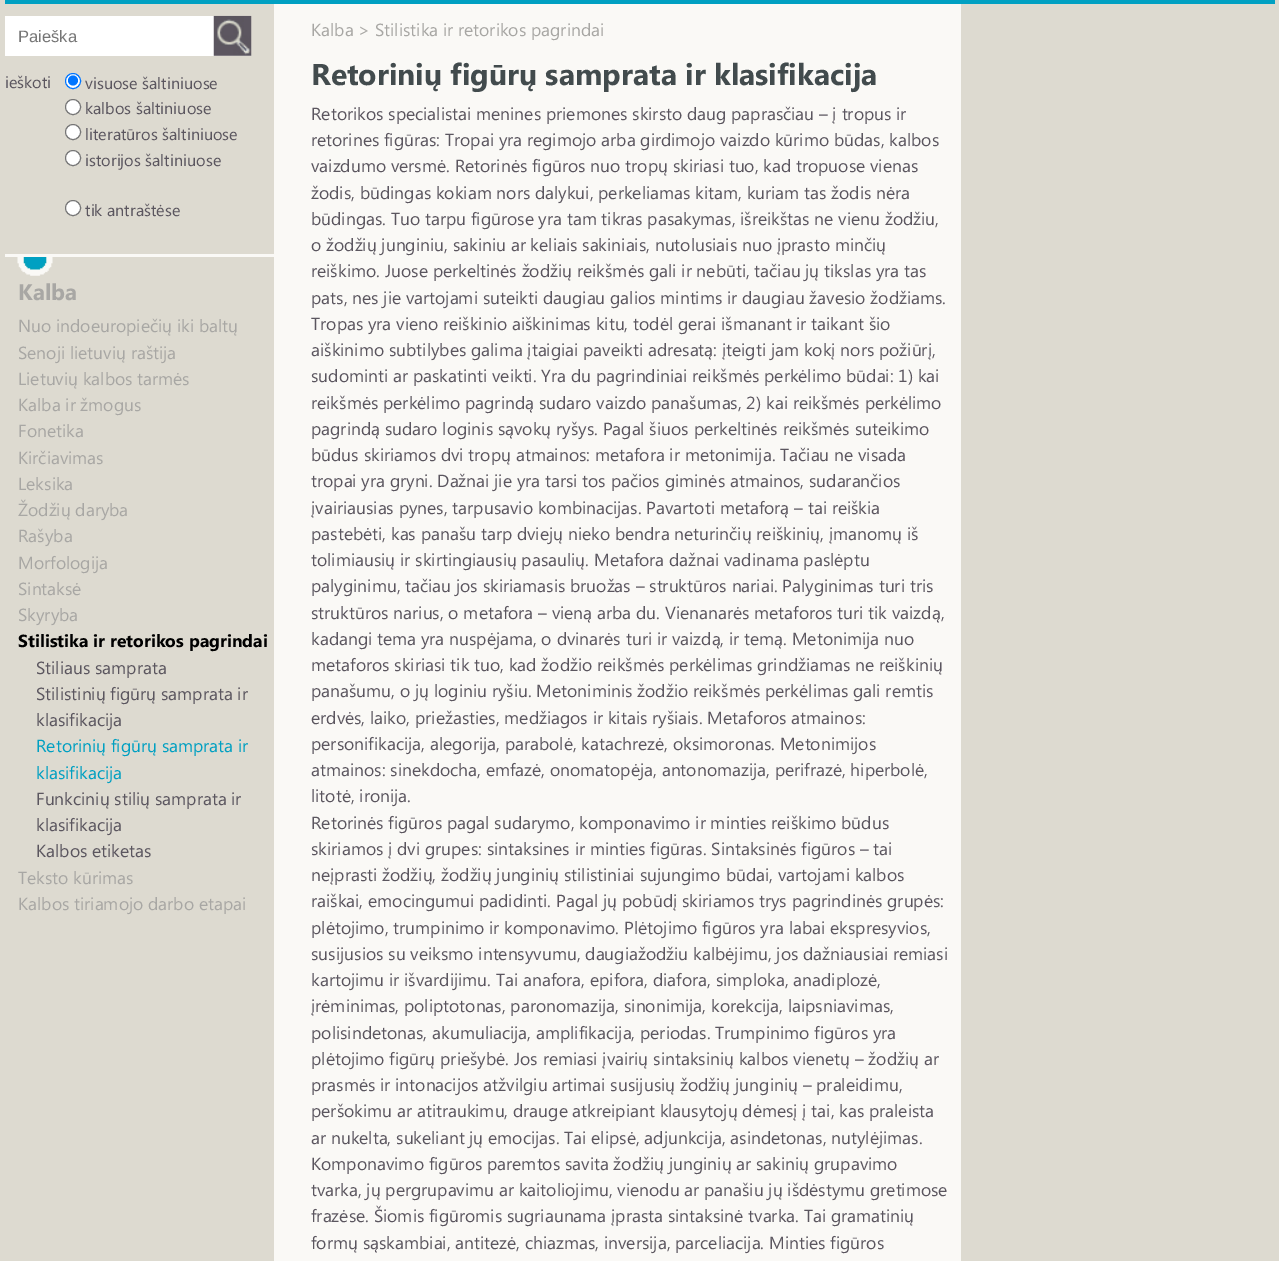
%!PS-Adobe-3.0
%%BoundingBox: 0 0 1279 1261
%%LanguageLevel: 3
%%Pages: 1
%%EndComments
%%BeginProlog
/drawimage { 5 dict begin { /h /w /y /x /name } { exch def } forall
  gsave x y translate w h scale
  w h 8 [w 0 0 h 0 0] name (r) file false 3 colorimage grestore end } def
%%EndProlog
%%BeginSetup
<< /PageSize [1279 1261] >> setpagedevice
%%EndSetup
%%Page: 1 1
0 1261 translate 1 -1 scale
4 setmiterlimit
0.867 0.855 0.816 setrgbcolor
0 0 1279 1261 rectfill
0 0.627 0.761 setrgbcolor
5 0 1270 4 rectfill
1 setgray
5 16 209 40 rectfill
(images/1.raw) 213 15 39 41 drawimage
newpath 73 81 7.5 0 360 arc closepath gsave fill grestore
0 0.459 1 setrgbcolor
stroke
newpath 73 80.5 5 0 360 arc closepath fill
1 setgray
newpath 73 107 7.5 0 360 arc closepath gsave fill grestore
0.463 setgray
stroke
1 setgray
newpath 73 132 7.5 0 360 arc closepath gsave fill grestore
0.463 setgray
stroke
1 setgray
newpath 73 158 7.5 0 360 arc closepath gsave fill grestore
0.463 setgray
stroke
1 setgray
newpath 73 208 7.5 0 360 arc closepath gsave fill grestore
0.463 setgray
stroke
0.98 0.976 0.965 setrgbcolor
274 4 687 1257 rectfill
(images/2.raw) 17 257 36 19 drawimage
5 254 269 3 rectfill
/LiberationSans-Regular [16.5 0 0 -16.5 0 0] selectfont
0.459 setgray
18 42 moveto (Paieška) show
/SegoeUI-Regular [16.25 0 0 -16.25 0 0] selectfont
0.357 0.337 0.373 setrgbcolor
5 88 moveto (ieškoti) show
85 89 moveto (visuose šaltiniuose) show
85 114 moveto (kalbos šaltiniuose) show
85 140 moveto (literatūros šaltiniuose) show
85 166 moveto (istorijos šaltiniuose) show
85 216 moveto (tik antraštėse) show
/SegoeUI-Regular [17.5 0 0 -17.5 0 0] selectfont
0.659 0.655 0.643 setrgbcolor
311 36 moveto (Kalba > Stilistika ir retorikos pagrindai) show
/SegoeUI-Bold [30 0 0 -30 0 0] selectfont
0.259 0.294 0.302 setrgbcolor
311 85 moveto (Retorinių figūrų samprata ir klasifikacija) show
/SegoeUI-Regular [17.5 0 0 -17.5 0 0] selectfont
0.357 0.337 0.373 setrgbcolor
311 120 moveto (Retorikos specialistai menines priemones skirsto daug paprasčiau – į tropus ir) show
311 146 moveto (retorines figūras: Tropai yra regimojo arba girdimojo vaizdo kūrimo būdas, kalbos) show
311 172 moveto (vaizdumo versmė. Retorinės figūros nuo tropų skiriasi tuo, kad tropuose vienas) show
311 199 moveto (žodis, būdingas kokiam nors dalykui, perkeliamas kitam, kuriam tas žodis nėra) show
311 225 moveto (būdingas. Tuo tarpu figūrose yra tam tikras pasakymas, išreikštas ne vienu žodžiu,) show
311 251 moveto (o žodžių junginiu, sakiniu ar keliais sakiniais, nutolusiais nuo įprasto minčių) show
311 277 moveto (reiškimo. Juose perkeltinės žodžių reikšmės gali ir nebūti, tačiau jų tikslas yra tas) show
311 304 moveto (pats, nes jie vartojami suteikti daugiau galios mintims ir daugiau žavesio žodžiams.) show
311 330 moveto (Tropas yra vieno reiškinio aiškinimas kitu, todėl gerai išmanant ir taikant šio) show
311 356 moveto (aiškinimo subtilybes galima įtaigiai paveikti adresatą: įteigti jam kokį nors požiūrį,) show
311 382 moveto (sudominti ar paskatinti veikti. Yra du pagrindiniai reikšmės perkėlimo būdai: 1\) kai) show
311 409 moveto (reikšmės perkėlimo pagrindą sudaro vaizdo panašumas, 2\) kai reikšmės perkėlimo) show
311 435 moveto (pagrindą sudaro loginis sąvokų ryšys. Pagal šiuos perkeltinės reikšmės suteikimo) show
311 461 moveto (būdus skiriamos dvi tropų atmainos: metafora ir metonimija. Tačiau ne visada) show
311 487 moveto (tropai yra gryni. Dažnai jie yra tarsi tos pačios giminės atmainos, sudarančios) show
311 514 moveto (įvairiausias pynes, tarpusavio kombinacijas. Pavartoti metaforą – tai reiškia) show
311 540 moveto (pastebėti, kas panašu tarp dviejų nieko bendra neturinčių reiškinių, įmanomų iš) show
311 566 moveto (tolimiausių ir skirtingiausių pasaulių. Metafora dažnai vadinama paslėptu) show
311 592 moveto (palyginimu, tačiau jos skiriamasis bruožas – struktūros nariai. Palyginimas turi tris) show
311 619 moveto (struktūros narius, o metafora – vieną arba du. Vienanarės metaforos turi tik vaizdą,) show
311 645 moveto (kadangi tema yra nuspėjama, o dvinarės turi ir vaizdą, ir temą. Metonimija nuo) show
311 671 moveto (metaforos skiriasi tik tuo, kad žodžio reikšmės perkėlimas grindžiamas ne reiškinių) show
311 697 moveto (panašumu, o jų loginiu ryšiu. Metoniminis žodžio reikšmės perkėlimas gali remtis) show
311 724 moveto (erdvės, laiko, priežasties, medžiagos ir kitais ryšiais. Metaforos atmainos:) show
311 750 moveto (personifikacija, alegorija, parabolė, katachrezė, oksimoronas. Metonimijos) show
311 776 moveto (atmainos: sinekdocha, emfazė, onomatopėja, antonomazija, perifrazė, hiperbolė,) show
311 802 moveto (litotė, ironija.) show
311 829 moveto (Retorinės figūros pagal sudarymo, komponavimo ir minties reiškimo būdus) show
311 855 moveto (skiriamos į dvi grupes: sintaksines ir minties figūras. Sintaksinės figūros – tai) show
311 881 moveto (neįprasti žodžių, žodžių junginių stilistiniai sujungimo būdai, vartojami kalbos) show
311 907 moveto (raiškai, emocingumui padidinti. Pagal jų pobūdį skiriamos trys pagrindinės grupės:) show
311 934 moveto (plėtojimo, trumpinimo ir komponavimo. Plėtojimo figūros yra labai ekspresyvios,) show
311 960 moveto (susijusios su veiksmo intensyvumu, daugiažodžiu kalbėjimu, jos dažniausiai remiasi) show
311 986 moveto (kartojimu ir išvardijimu. Tai anafora, epifora, diafora, simploka, anadiplozė,) show
311 1012 moveto (įrėminimas, poliptotonas, paronomazija, sinonimija, korekcija, laipsniavimas,) show
311 1039 moveto (polisindetonas, akumuliacija, amplifikacija, periodas. Trumpinimo figūros yra) show
311 1065 moveto (plėtojimo figūrų priešybė. Jos remiasi įvairių sintaksinių kalbos vienetų – žodžių ar) show
311 1091 moveto (prasmės ir intonacijos atžvilgiu artimai susijusių žodžių junginių – praleidimu,) show
311 1117 moveto (peršokimu ar atitraukimu, drauge atkreipiant klausytojų dėmesį į tai, kas praleista) show
311 1144 moveto (ar nukelta, sukeliant jų emocijas. Tai elipsė, adjunkcija, asindetonas, nutylėjimas.) show
311 1170 moveto (Komponavimo figūros paremtos savita žodžių junginių ar sakinių grupavimo) show
311 1196 moveto (tvarka, jų pergrupavimu ar kaitoliojimu, vienodu ar panašiu jų išdėstymu gretimose) show
311 1222 moveto (frazėse. Šiomis figūromis sugriaunama įprasta sintaksinė tvarka. Tai gramatinių) show
311 1249 moveto (formų sąskambiai, antitezė, chiazmas, inversija, parceliacija. Minties figūros) show
/SegoeUI-Bold [22.5 0 0 -22.5 0 0] selectfont
0.659 0.655 0.643 setrgbcolor
18 300 moveto (Kalba) show
/SegoeUI-Regular [17.5 0 0 -17.5 0 0] selectfont
18 332 moveto (Nuo indoeuropiečių iki baltų) show
18 359 moveto (Senoji lietuvių raštija) show
18 385 moveto (Lietuvių kalbos tarmės) show
18 411 moveto (Kalba ir žmogus) show
18 437 moveto (Fonetika) show
18 464 moveto (Kirčiavimas) show
18 490 moveto (Leksika) show
18 516 moveto (Žodžių daryba) show
18 542 moveto (Rašyba) show
18 569 moveto (Morfologija) show
18 595 moveto (Sintaksė) show
18 621 moveto (Skyryba) show
/SegoeUI-Bold [17.5 0 0 -17.5 0 0] selectfont
0 setgray
18 647 moveto (Stilistika ir retorikos pagrindai) show
/SegoeUI-Regular [17.5 0 0 -17.5 0 0] selectfont
0.357 0.337 0.373 setrgbcolor
36 674 moveto (Stiliaus samprata) show
36 700 moveto (Stilistinių figūrų samprata ir) show
36 726 moveto (klasifikacija) show
0 0.627 0.761 setrgbcolor
36 752 moveto (Retorinių figūrų samprata ir) show
36 779 moveto (klasifikacija) show
0.357 0.337 0.373 setrgbcolor
36 805 moveto (Funkcinių stilių samprata ir) show
36 831 moveto (klasifikacija) show
36 857 moveto (Kalbos etiketas) show
0.659 0.655 0.643 setrgbcolor
18 884 moveto (Teksto kūrimas) show
18 910 moveto (Kalbos tiriamojo darbo etapai) show
showpage
%%EOF
